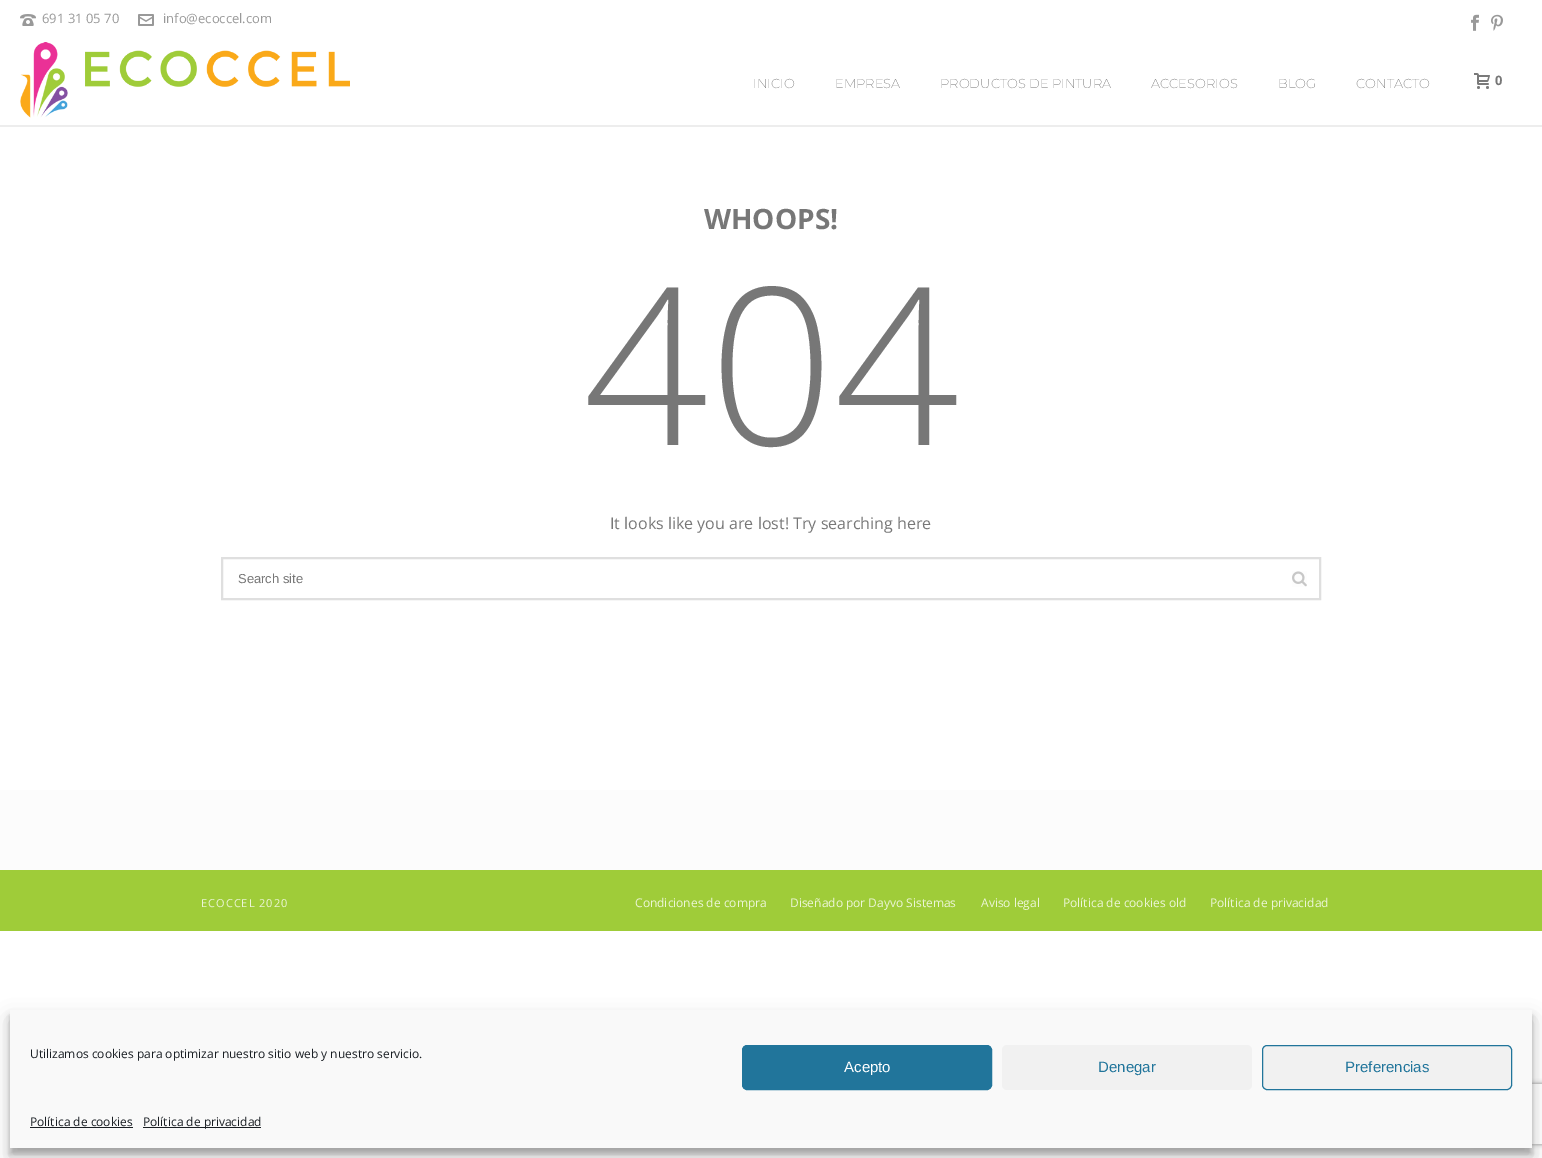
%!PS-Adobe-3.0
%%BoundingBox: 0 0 1542 1158
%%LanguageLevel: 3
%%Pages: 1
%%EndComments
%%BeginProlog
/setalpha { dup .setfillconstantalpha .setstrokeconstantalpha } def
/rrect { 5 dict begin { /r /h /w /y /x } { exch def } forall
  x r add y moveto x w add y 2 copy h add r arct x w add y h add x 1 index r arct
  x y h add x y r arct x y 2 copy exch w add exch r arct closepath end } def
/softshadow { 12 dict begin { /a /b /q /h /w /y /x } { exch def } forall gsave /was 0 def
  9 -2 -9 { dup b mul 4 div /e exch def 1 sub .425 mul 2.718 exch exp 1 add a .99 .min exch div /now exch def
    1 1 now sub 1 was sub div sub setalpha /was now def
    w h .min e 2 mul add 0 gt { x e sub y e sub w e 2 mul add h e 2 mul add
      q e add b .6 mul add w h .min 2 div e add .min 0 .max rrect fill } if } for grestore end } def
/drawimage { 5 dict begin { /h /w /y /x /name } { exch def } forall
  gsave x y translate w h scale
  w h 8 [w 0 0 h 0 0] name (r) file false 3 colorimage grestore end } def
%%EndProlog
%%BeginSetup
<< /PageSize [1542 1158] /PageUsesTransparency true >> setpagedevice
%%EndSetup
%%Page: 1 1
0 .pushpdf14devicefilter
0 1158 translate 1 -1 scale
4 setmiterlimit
1 setgray
0 0 1542 1158 rectfill
0.929 setgray
0 125 1542 2 rectfill
(images/1.raw) 20 14 16 12 drawimage
(images/2.raw) 138 14 16 12 drawimage
(images/3.raw) 1471 14 8 17 drawimage
(images/4.raw) 1491 14 12 17 drawimage
(images/5.raw) 20 42 330 76 drawimage
(images/6.raw) 1474 73 16 16 drawimage
0.875 setgray
2 setlinewidth
222 558 1098 41 rectstroke
(images/7.raw) 1292 571 15 16 drawimage
0.988 setgray
0 790 1542 80 rectfill
0.624 0.8 0.224 setrgbcolor
0 870 1542 61 rectfill
0 setgray
10 1016 1522 138 0 3 0.23 softshadow
10 1020 1522 138 0 10 0.19 softshadow
gsave
newpath 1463 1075 moveto 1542 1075 lineto 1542 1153 lineto 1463 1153 lineto closepath 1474 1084 moveto 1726 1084 lineto 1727 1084 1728 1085 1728 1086 curveto 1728 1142 lineto 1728 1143 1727 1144 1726 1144 curveto 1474 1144 lineto 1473 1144 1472 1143 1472 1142 curveto 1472 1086 lineto 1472 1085 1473 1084 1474 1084 curveto closepath eoclip newpath
0.502 setgray
1472 1084 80 60 2 2.5 1 softshadow
grestore
0.976 setgray
10 1010 1522 138 rectfill
0.129 0.459 0.608 setrgbcolor
742.5 1045.5 249 44 4.5 rrect gsave fill grestore
1 setlinewidth
stroke
0.945 setgray
1002 1045 250 45 5 rrect fill
1262.5 1045.5 249 44 4.5 rrect gsave fill grestore
0.129 0.459 0.608 setrgbcolor
stroke
0.098 0.118 0.137 setrgbcolor
30 1127 103 1 rectfill
143 1127 118 1 rectfill
/OpenSans-Regular [13 0 0 -13 0 0] selectfont
0.6 setgray
42 23 moveto (691 31 05 70) show
163 23 moveto (info@ecoccel.com) show
/Montserrat-ExtraLight [13 0 0 -13 0 0] selectfont
0.467 setgray
753 88 moveto (INICIO) show
835 88 moveto (EMPRESA) show
940 88 moveto (PRODUCTOS DE PINTURA) show
1151 88 moveto (ACCESORIOS) show
1278 88 moveto (BLOG) show
1356 88 moveto (CONTACTO) show
/OpenSans-Bold [13 0 0 -13 0 0] selectfont
1495 85 moveto (0) show
/OpenSans-Bold [28 0 0 -28 0 0] selectfont
704 229 moveto (WHOOPS!) show
/OpenSans-Light [220 0 0 -220 0 0] selectfont
583 445 moveto (404) show
/OpenSans-Regular [16 0 0 -16 0 0] selectfont
610 529 moveto (It looks like you are lost! Try searching here) show
/LiberationSans-Regular [13 0 0 -13 0 0] selectfont
238 583 moveto (Search site) show
/OpenSans-Regular [11 0 0 -11 0 0] selectfont
0.925 0.961 0.843 setrgbcolor
201 907 moveto 1 0 (ECOCCEL 2020) ashow
/OpenSans-Regular [12 0 0 -12 0 0] selectfont
635 907 moveto (Condiciones de compra) show
790 907 moveto (Diseñado por Dayvo Sistemas) show
981 907 moveto (Aviso legal) show
1063 907 moveto (Política de cookies old) show
1210 907 moveto (Política de privacidad) show
0.098 0.118 0.137 setrgbcolor
30 1058 moveto (Utilizamos cookies para optimizar nuestro sitio web y nuestro servicio.) show
/LiberationSans-Regular [15 0 0 -15 0 0] selectfont
1 setgray
844 1072 moveto (Acepto) show
0.129 0.459 0.608 setrgbcolor
1098 1072 moveto (Denegar) show
1345 1072 moveto (Preferencias) show
/OpenSans-Regular [12 0 0 -12 0 0] selectfont
0.098 0.118 0.137 setrgbcolor
30 1126 moveto (Política de cookies) show
143 1126 moveto (Política de privacidad) show
.poppdf14devicefilter showpage
%%EOF
